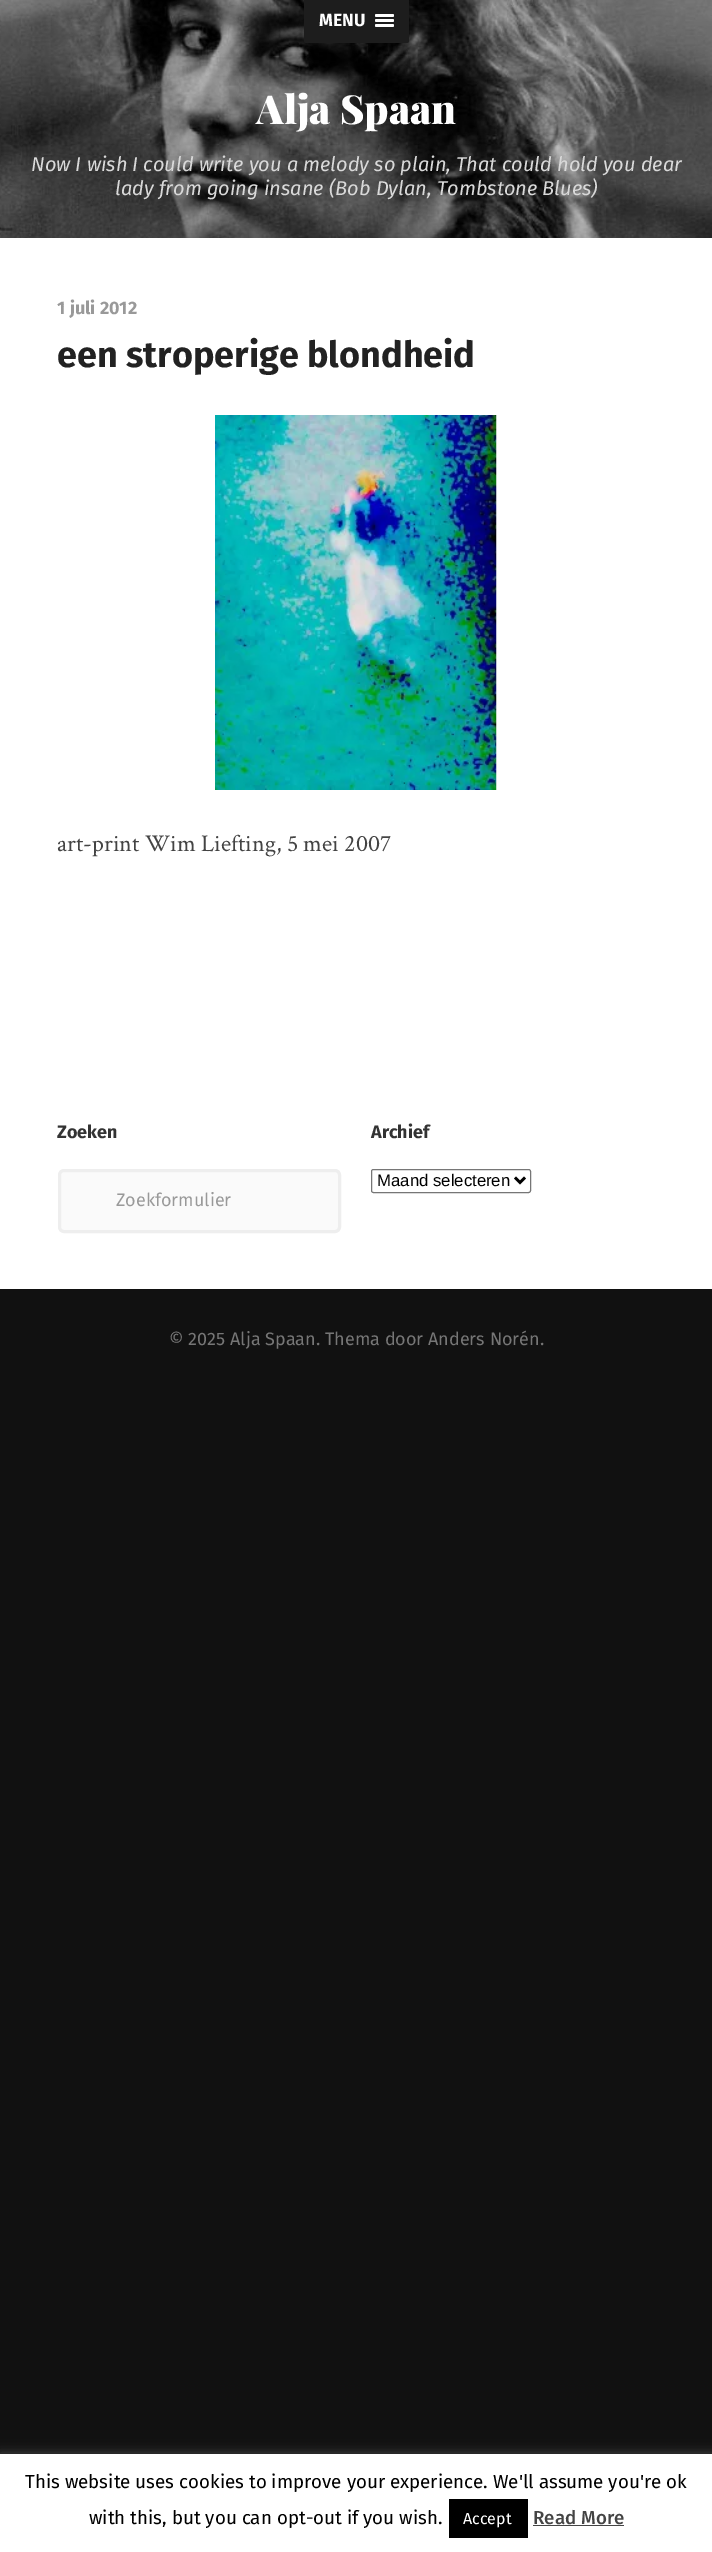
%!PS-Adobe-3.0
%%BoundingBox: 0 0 712 2552
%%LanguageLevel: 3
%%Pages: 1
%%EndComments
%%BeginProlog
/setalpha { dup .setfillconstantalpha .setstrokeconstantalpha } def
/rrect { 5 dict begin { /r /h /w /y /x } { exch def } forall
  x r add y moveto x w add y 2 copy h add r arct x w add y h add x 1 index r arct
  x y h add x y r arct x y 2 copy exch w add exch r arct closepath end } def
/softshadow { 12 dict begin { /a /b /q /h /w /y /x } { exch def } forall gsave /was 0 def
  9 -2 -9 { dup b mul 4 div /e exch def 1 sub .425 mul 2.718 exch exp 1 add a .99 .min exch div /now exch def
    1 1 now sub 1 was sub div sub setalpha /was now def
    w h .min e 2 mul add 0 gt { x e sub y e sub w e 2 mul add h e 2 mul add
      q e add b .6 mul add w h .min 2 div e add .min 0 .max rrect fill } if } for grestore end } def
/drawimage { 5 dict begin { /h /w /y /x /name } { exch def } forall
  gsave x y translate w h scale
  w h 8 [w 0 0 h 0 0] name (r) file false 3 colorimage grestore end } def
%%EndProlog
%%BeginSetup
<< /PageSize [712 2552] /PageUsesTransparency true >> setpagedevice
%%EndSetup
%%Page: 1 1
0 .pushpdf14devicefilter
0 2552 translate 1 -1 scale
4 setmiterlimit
0.067 setgray
0 0 712 2552 rectfill
(images/1.raw) 0 0 712 238 drawimage
0.114 setgray
newpath 304 0 moveto 409 0 lineto 409 40.5 lineto 409 42 408 43 406.5 43 curveto 306.5 43 lineto 305 43 304 42 304 40.5 curveto closepath fill
1 setgray
375 14 19 3 1.5 rrect fill
375 19 19 3 1.5 rrect fill
375 24 19 3 1.5 rrect fill
0 238 712 1051 rectfill
(images/2.raw) 215 415 282 375 drawimage
0.98 setgray
59.5 1170.5 280 61 4.5 rrect gsave fill grestore
0.933 setgray
3 setlinewidth
stroke
0.463 setgray
1 setlinewidth
371.5 1169.5 159 23 2 rrect stroke
0 setgray
2.5 setlinewidth
newpath 515 1177.5 moveto 520 1182.5 lineto 525 1177.5 lineto stroke
0.675 0.671 0.671 setrgbcolor
0 2453 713 98 0 6 0.3 softshadow
1 setgray
0 2454 712 98 rectfill
0 setgray
449 2499 79 39 rectfill
0.267 setgray
533 2525 91 1 rectfill
/FiraSans-Bold [17.5 0 0 -17.5 0 0] selectfont
1 setgray
319 26 moveto (MENU) show
/PlayfairDisplay-Black [40 0 0 -40 0 0] selectfont
256 124 moveto (Alja Spaan) show
/FiraSans-Italic [20 0 0 -20 0 0] selectfont
0.851 setgray
31 171 moveto (Now I wish I could write you a melody so plain, That could hold you dear) show
115 195 moveto (lady from going insane) show
329 195 moveto (\(Bob Dylan,) show
437 195 moveto (Tombstone Blues\)) show
/FiraSans-Bold [18 0 0 -18 0 0] selectfont
0.6 setgray
57 314 moveto (1 juli 2012) show
/FiraSans-Bold [36 0 0 -36 0 0] selectfont
0.133 setgray
57 367 moveto (een stroperige blondheid) show
/CrimsonText-Regular [24 0 0 -24 0 0] selectfont
0.267 setgray
57 851 moveto (art-print Wim Liefting, 5 mei 2007) show
/FiraSans-Bold [18 0 0 -18 0 0] selectfont
0.2 setgray
57 1138 moveto (Zoeken) show
/FiraSans-Regular [18 0 0 -18 0 0] selectfont
0.6 setgray
116 1206 moveto (Zoekformulier) show
/FiraSans-Bold [18 0 0 -18 0 0] selectfont
0.2 setgray
371 1138 moveto (Archief) show
/LiberationSans-Regular [16.75 0 0 -16.75 0 0] selectfont
0 setgray
377 1186 moveto (Maand selecteren) show
/FiraSans-Regular [18 0 0 -18 0 0] selectfont
0.463 setgray
169 1345 moveto (© 2025 Alja Spaan. Thema door Anders Norén.) show
/FiraSans-Regular [18.75 0 0 -18.75 0 0] selectfont
0 setgray
25 2488 moveto (This website uses cookies to improve your experience. We'll assume you're ok) show
89 2524 moveto (with this, but you can opt-out if you wish.) show
/FiraSans-Regular [16 0 0 -16 0 0] selectfont
1 setgray
463 2524 moveto (Accept) show
/FiraSans-Medium [18.75 0 0 -18.75 0 0] selectfont
0.267 setgray
533 2524 moveto (Read More) show
.poppdf14devicefilter showpage
%%EOF
